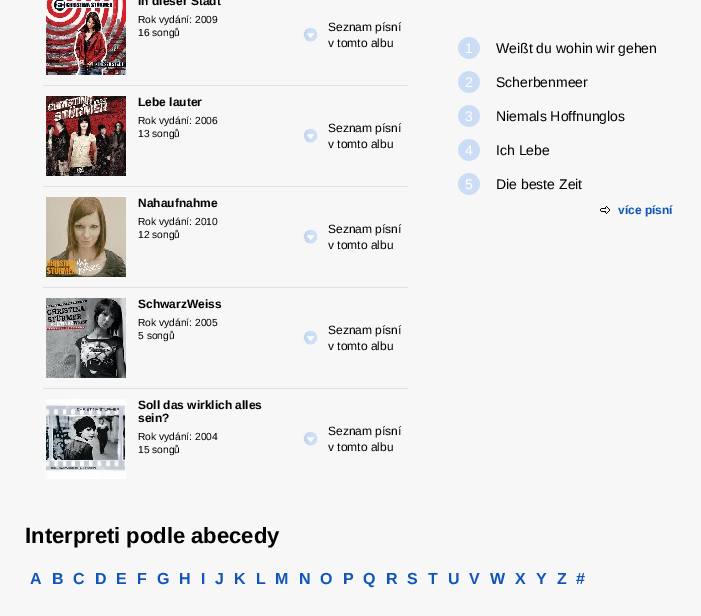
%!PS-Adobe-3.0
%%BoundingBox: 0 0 701 616
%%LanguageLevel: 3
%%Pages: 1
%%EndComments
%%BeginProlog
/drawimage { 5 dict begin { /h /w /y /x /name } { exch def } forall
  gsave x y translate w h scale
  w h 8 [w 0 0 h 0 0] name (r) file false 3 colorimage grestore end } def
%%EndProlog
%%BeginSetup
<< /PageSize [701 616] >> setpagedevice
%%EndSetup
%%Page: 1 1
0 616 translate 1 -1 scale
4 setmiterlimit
0.969 setgray
0 0 701 616 rectfill
(images/1.raw) 46 0 80 75 drawimage
(images/2.raw) 303 27 15 15 drawimage
0.882 0.882 0.886 setrgbcolor
43 85 365 1 rectfill
(images/3.raw) 46 96 80 80 drawimage
(images/2.raw) 303 128 15 15 drawimage
43 186 365 1 rectfill
(images/4.raw) 46 197 80 80 drawimage
(images/2.raw) 303 229 15 15 drawimage
43 287 365 1 rectfill
(images/5.raw) 46 298 80 80 drawimage
(images/2.raw) 303 330 15 15 drawimage
43 388 365 1 rectfill
(images/6.raw) 46 399 80 80 drawimage
(images/2.raw) 303 431 15 15 drawimage
(images/7.raw) 458 37 22 22 drawimage
(images/7.raw) 458 71 22 22 drawimage
(images/7.raw) 458 105 22 22 drawimage
(images/7.raw) 458 139 22 22 drawimage
(images/7.raw) 458 173 22 22 drawimage
(images/8.raw) 600 206 10 8 drawimage
/LiberationSans-Bold [12 0 0 -12 0 0] selectfont
0 setgray
138 5 moveto (In dieser Stadt) show
/LiberationSans-Regular [10.25 0 0 -10.25 0 0] selectfont
138 23 moveto (Rok vydání: 2009) show
138 36 moveto (16 songů) show
/LiberationSans-Regular [12 0 0 -12 0 0] selectfont
328 31 moveto (Seznam písní) show
328 47 moveto (v tomto albu) show
/LiberationSans-Bold [12 0 0 -12 0 0] selectfont
138 106 moveto (Lebe lauter) show
/LiberationSans-Regular [10.25 0 0 -10.25 0 0] selectfont
138 124 moveto (Rok vydání: 2006) show
138 137 moveto (13 songů) show
/LiberationSans-Regular [12 0 0 -12 0 0] selectfont
328 132 moveto (Seznam písní) show
328 148 moveto (v tomto albu) show
/LiberationSans-Bold [12 0 0 -12 0 0] selectfont
138 207 moveto (Nahaufnahme) show
/LiberationSans-Regular [10.25 0 0 -10.25 0 0] selectfont
138 225 moveto (Rok vydání: 2010) show
138 238 moveto (12 songů) show
/LiberationSans-Regular [12 0 0 -12 0 0] selectfont
328 233 moveto (Seznam písní) show
328 249 moveto (v tomto albu) show
/LiberationSans-Bold [12 0 0 -12 0 0] selectfont
138 308 moveto (SchwarzWeiss) show
/LiberationSans-Regular [10.25 0 0 -10.25 0 0] selectfont
138 326 moveto (Rok vydání: 2005) show
138 339 moveto (5 songů) show
/LiberationSans-Regular [12 0 0 -12 0 0] selectfont
328 334 moveto (Seznam písní) show
328 350 moveto (v tomto albu) show
/LiberationSans-Bold [12 0 0 -12 0 0] selectfont
138 409 moveto (Soll das wirklich alles) show
138 422 moveto (sein?) show
/LiberationSans-Regular [10.25 0 0 -10.25 0 0] selectfont
138 440 moveto (Rok vydání: 2004) show
138 453 moveto (15 songů) show
/LiberationSans-Regular [12 0 0 -12 0 0] selectfont
328 435 moveto (Seznam písní) show
328 451 moveto (v tomto albu) show
/LiberationSans-Regular [14 0 0 -14 0 0] selectfont
1 setgray
465 53 moveto (1) show
0 setgray
496 53 moveto (Weißt du wohin wir gehen) show
1 setgray
465 87 moveto (2) show
0 setgray
496 87 moveto (Scherbenmeer) show
1 setgray
465 121 moveto (3) show
0 setgray
496 121 moveto (Niemals Hoffnunglos) show
1 setgray
465 155 moveto (4) show
0 setgray
496 155 moveto (Ich Lebe) show
1 setgray
465 189 moveto (5) show
0 setgray
496 189 moveto (Die beste Zeit) show
/LiberationSans-Bold [12 0 0 -12 0 0] selectfont
0.063 0.333 0.725 setrgbcolor
618 214 moveto (více písní) show
/LiberationSans-Bold [22 0 0 -22 0 0] selectfont
0 setgray
25 543 moveto (Interpreti podle abecedy) show
/LiberationSans-Bold [16 0 0 -16 0 0] selectfont
0.063 0.333 0.725 setrgbcolor
30 584 moveto (A) show
52 584 moveto (B) show
73 584 moveto (C) show
95 584 moveto (D) show
116 584 moveto (E) show
137 584 moveto (F) show
157 584 moveto (G) show
179 584 moveto (H) show
201 584 moveto (I) show
215 584 moveto (J) show
234 584 moveto (K) show
256 584 moveto (L) show
275 584 moveto (M) show
299 584 moveto (N) show
320 584 moveto (O) show
343 584 moveto (P) show
363 584 moveto (Q) show
386 584 moveto (R) show
407 584 moveto (S) show
428 584 moveto (T) show
448 584 moveto (U) show
469 584 moveto (V) show
490 584 moveto (W) show
515 584 moveto (X) show
536 584 moveto (Y) show
557 584 moveto (Z) show
576 584 moveto (#) show
showpage
%%EOF
